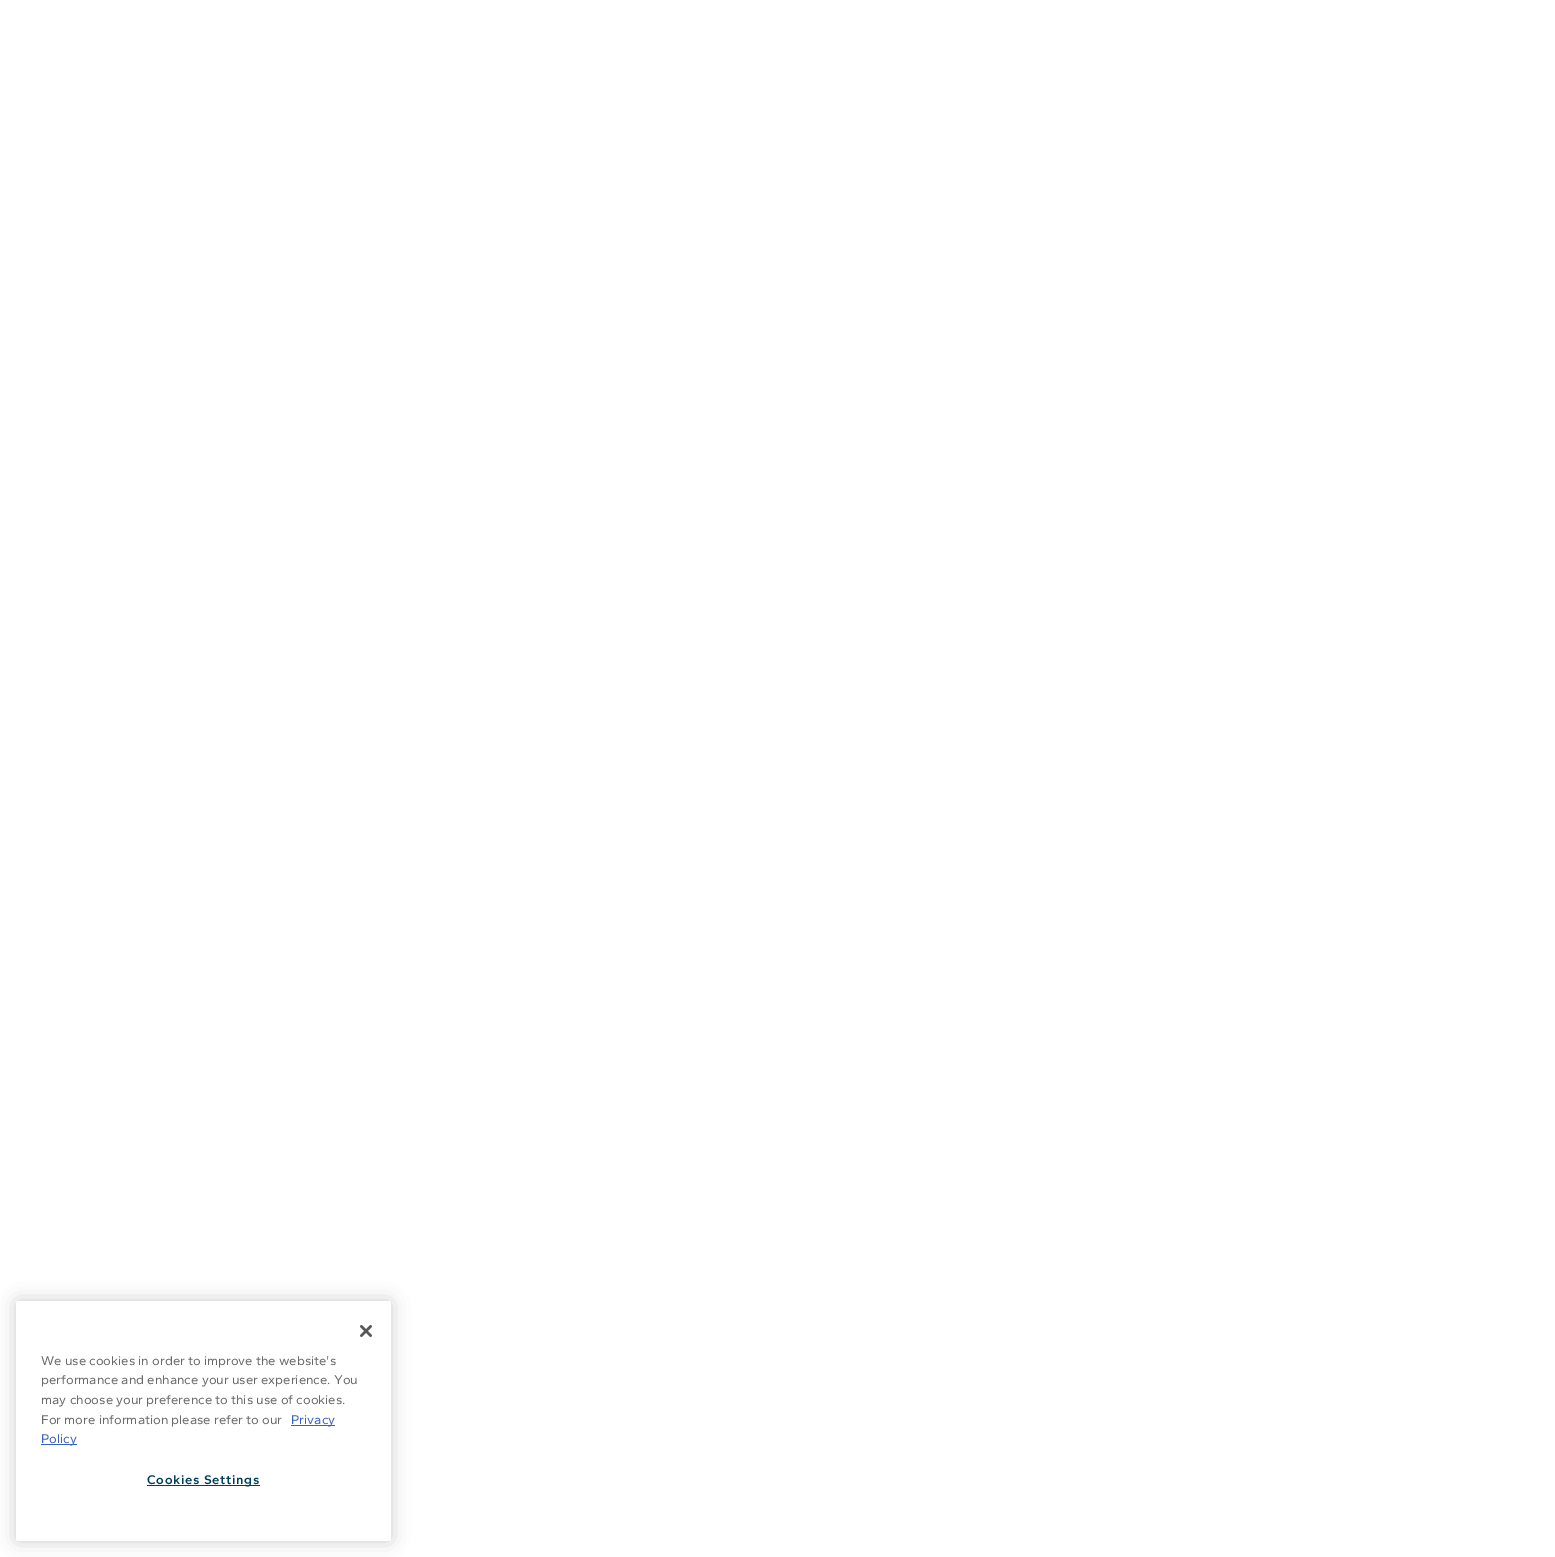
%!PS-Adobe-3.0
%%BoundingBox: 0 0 1555 1557
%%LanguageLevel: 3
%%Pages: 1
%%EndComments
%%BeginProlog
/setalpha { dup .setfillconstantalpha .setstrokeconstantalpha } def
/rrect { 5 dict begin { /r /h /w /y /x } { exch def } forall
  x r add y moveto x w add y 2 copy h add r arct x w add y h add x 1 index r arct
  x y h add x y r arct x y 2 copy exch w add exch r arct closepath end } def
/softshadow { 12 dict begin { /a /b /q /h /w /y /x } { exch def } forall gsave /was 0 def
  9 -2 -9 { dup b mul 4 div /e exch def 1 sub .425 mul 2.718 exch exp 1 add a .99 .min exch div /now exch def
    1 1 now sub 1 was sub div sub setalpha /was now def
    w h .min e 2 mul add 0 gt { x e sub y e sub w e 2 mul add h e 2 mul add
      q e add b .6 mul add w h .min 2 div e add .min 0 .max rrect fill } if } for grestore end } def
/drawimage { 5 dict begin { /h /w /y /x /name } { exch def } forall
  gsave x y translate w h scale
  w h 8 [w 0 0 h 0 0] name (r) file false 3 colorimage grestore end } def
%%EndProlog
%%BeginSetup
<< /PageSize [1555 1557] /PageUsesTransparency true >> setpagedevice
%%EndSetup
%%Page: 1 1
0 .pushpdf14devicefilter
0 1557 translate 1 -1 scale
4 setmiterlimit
1 setgray
0 0 1555 1557 rectfill
0 setgray
16 1301 375 240 2.5 9 0.2 softshadow
1 setgray
16 1301 375 240 2.5 rrect fill
(images/1.raw) 360 1325 12 12 drawimage
0.22 0.376 0.745 setrgbcolor
291 1425 44 1 rectfill
41 1444 36 1 rectfill
0 0.247 0.353 setrgbcolor
147 1485 113 1 rectfill
/Gantari-Regular [13.1 0 0 -13.1 0 0] selectfont
0.412 setgray
41 1365 moveto (We use cookies in order to improve the website's) show
41 1384 moveto (performance and enhance your user experience. You) show
41 1404 moveto (may choose your preference to this use of cookies.) show
41 1424 moveto (For more information please refer to our) show
0.22 0.376 0.745 setrgbcolor
291 1424 moveto (Privacy) show
41 1443 moveto (Policy) show
/Gantari-SemiBold [13.1 0 0 -13.1 0 0] selectfont
0 0.247 0.353 setrgbcolor
147 1484 moveto 0.7 0 (Cookies Settings) ashow
.poppdf14devicefilter showpage
%%EOF
